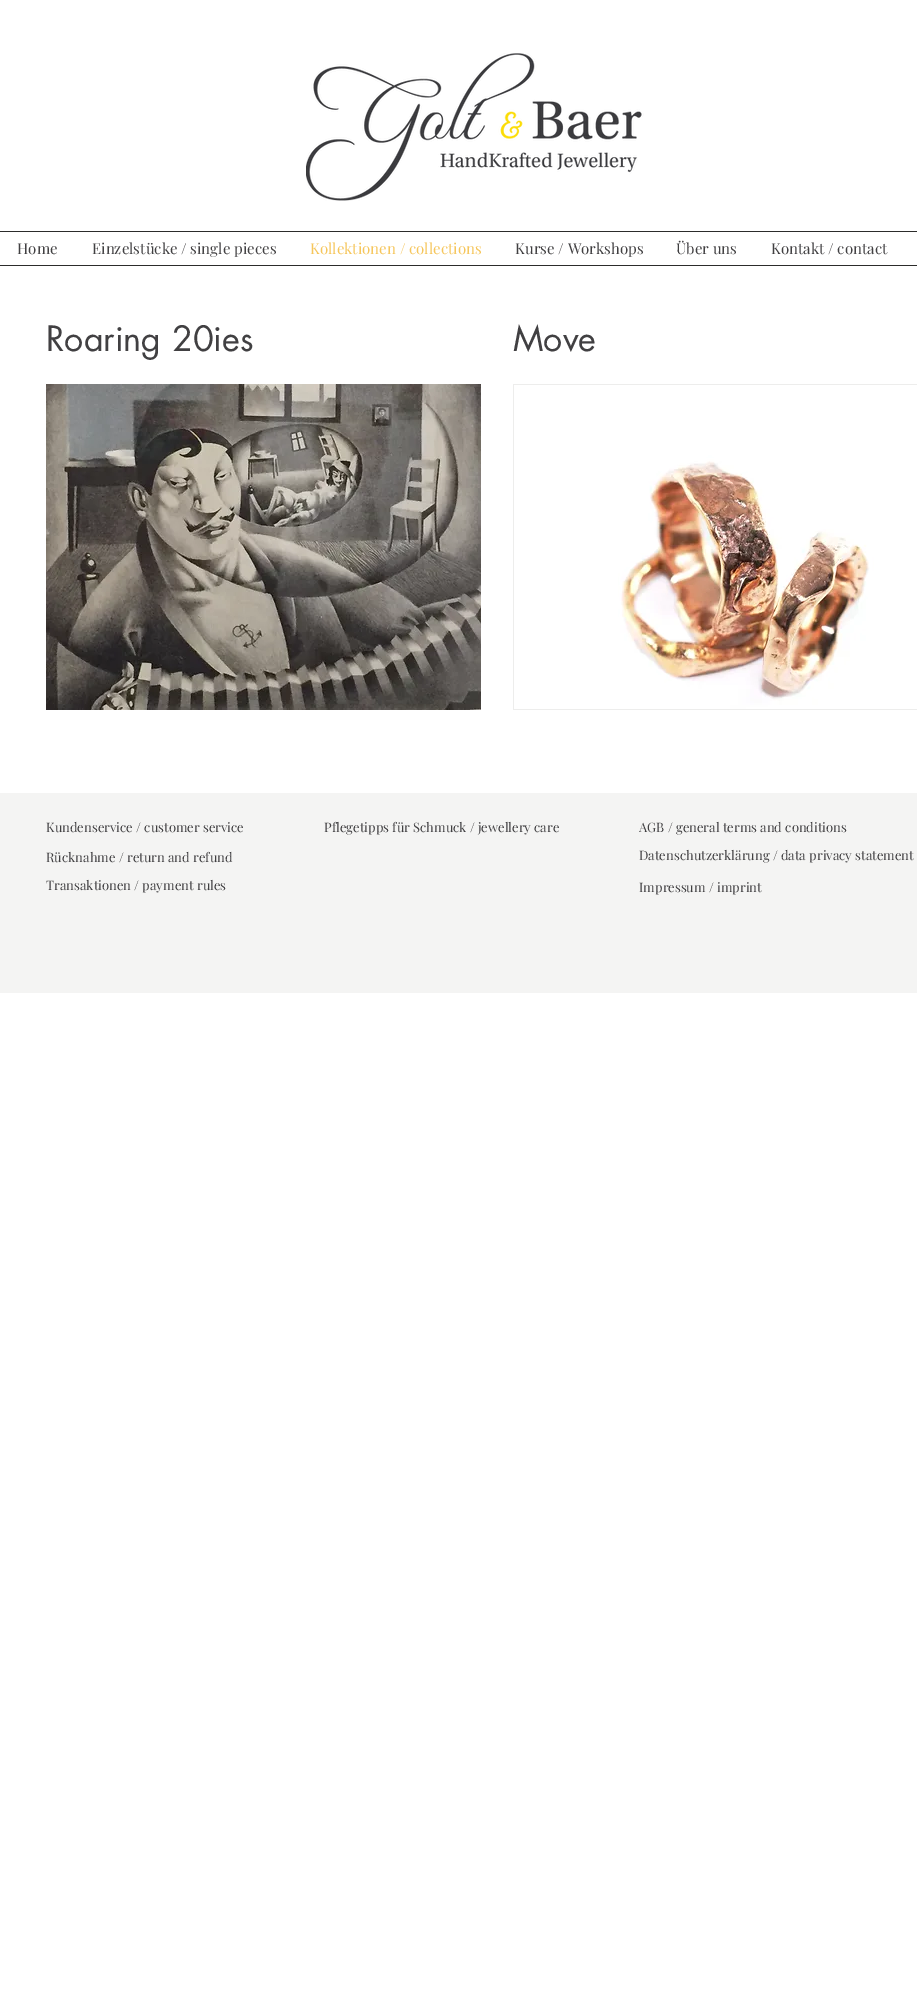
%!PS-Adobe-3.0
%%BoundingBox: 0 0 917 1995
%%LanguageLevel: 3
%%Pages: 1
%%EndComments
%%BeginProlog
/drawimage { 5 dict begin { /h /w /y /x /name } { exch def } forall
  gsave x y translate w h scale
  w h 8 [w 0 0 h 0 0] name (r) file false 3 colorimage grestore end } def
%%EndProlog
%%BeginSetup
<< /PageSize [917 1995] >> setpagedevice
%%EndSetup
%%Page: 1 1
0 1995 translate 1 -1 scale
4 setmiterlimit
1 setgray
0 0 917 1995 rectfill
(images/1.raw) 306 53 338 148 drawimage
0.173 0.173 0.169 setrgbcolor
0 231 917 1 rectfill
0 265 917 1 rectfill
(images/2.raw) 46 384 435 326 drawimage
0.929 0.929 0.925 setrgbcolor
513 384 404 326 rectfill
(images/3.raw) 514 385 403 324 drawimage
0.957 0.957 0.953 setrgbcolor
0 793 917 200 rectfill
/PlayfairDisplay-Regular [15 0 0 -15 0 0] selectfont
0.255 0.251 0.259 setrgbcolor
17 254 moveto (Home) show
92 254 moveto (Einzelstücke / single pieces) show
0.965 0.776 0.357 setrgbcolor
310 254 moveto (Kollektionen / collections) show
0.255 0.251 0.259 setrgbcolor
515 254 moveto (Kurse / Workshops) show
676 254 moveto (Über uns) show
771 254 moveto (Kontakt / contact) show
/futura-Regular [34 0 0 -34 0 0] selectfont
46 351 moveto (Roaring 20ies) show
513 351 moveto (Move) show
/PlayfairDisplay-Regular [13 0 0 -13 0 0] selectfont
46 832 moveto (Kundenservice / customer service) show
46 862 moveto (Rücknahme / return and refund) show
46 890 moveto (Transaktionen / payment rules) show
324 832 moveto (Pflegetipps für Schmuck / jewellery care) show
639 832 moveto (AGB / general terms and conditions) show
639 860 moveto (Datenschutzerklärung / data privacy statement) show
639 892 moveto (Impressum / imprint) show
showpage
%%EOF
